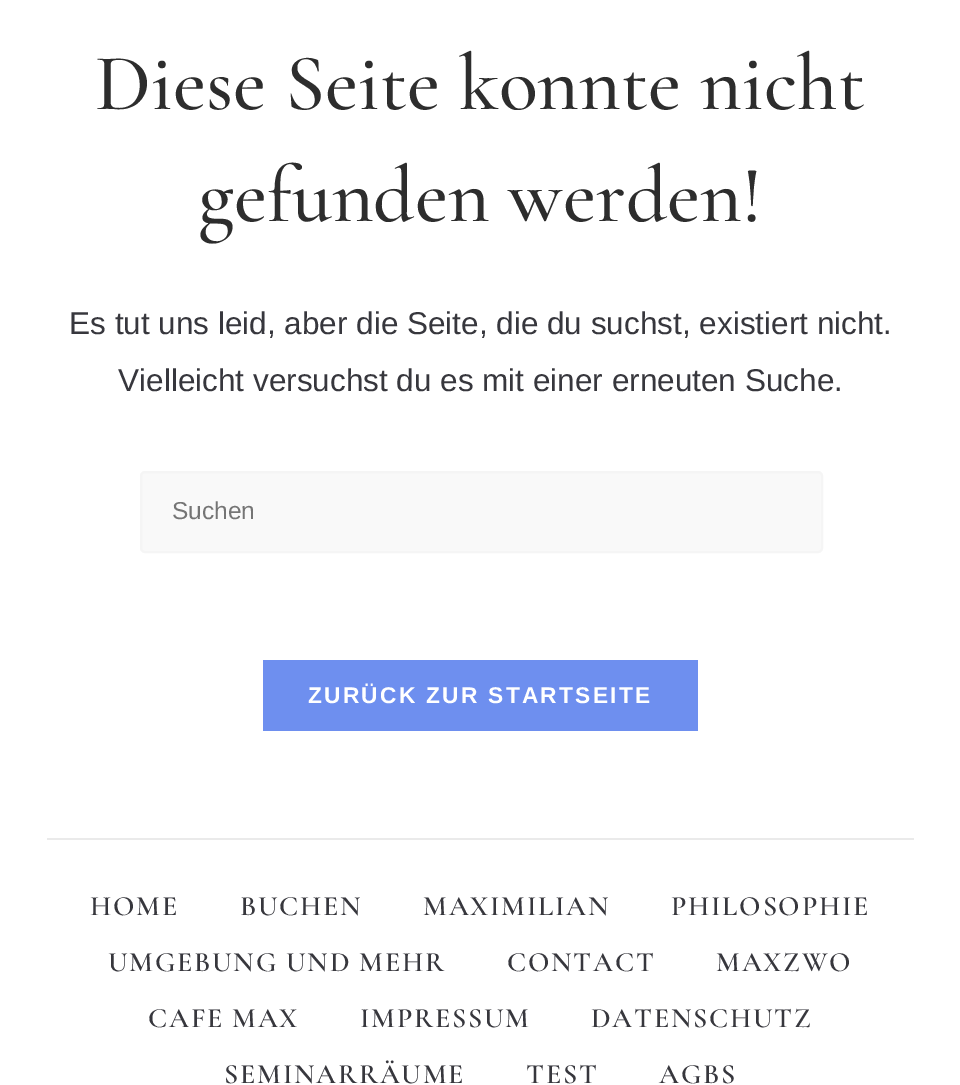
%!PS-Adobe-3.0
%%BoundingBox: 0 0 960 1085
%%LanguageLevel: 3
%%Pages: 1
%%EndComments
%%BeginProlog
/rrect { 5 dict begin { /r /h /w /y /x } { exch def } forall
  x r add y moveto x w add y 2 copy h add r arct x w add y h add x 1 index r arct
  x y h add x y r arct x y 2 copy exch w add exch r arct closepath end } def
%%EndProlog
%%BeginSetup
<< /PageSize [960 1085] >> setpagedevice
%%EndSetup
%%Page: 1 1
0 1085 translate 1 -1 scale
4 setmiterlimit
1 setgray
0 0 960 1085 rectfill
0.976 setgray
141 472 681 80 4 rrect gsave fill grestore
0.961 setgray
2 setlinewidth
stroke
0.431 0.561 0.937 setrgbcolor
263 660 435 71 rectfill
0.918 setgray
47 838 867 2 rectfill
/CormorantGaramond-Medium [80.5 0 0 -80.5 0 0] selectfont
0.176 setgray
95 109 moveto (Diese Seite konnte nicht) show
198 221 moveto (gefunden werden!) show
/LiberationSans-Regular [31.5 0 0 -31.5 0 0] selectfont
0.216 0.216 0.239 setrgbcolor
69 334 moveto (Es tut uns leid, aber die Seite, die du suchst, existiert nicht.) show
118 391 moveto (Vielleicht versuchst du es mit einer erneuten Suche.) show
/LiberationSans-Regular [24.5 0 0 -24.5 0 0] selectfont
0.459 setgray
172 519 moveto (Suchen) show
/LiberationSans-Bold [22.75 0 0 -22.75 0 0] selectfont
1 setgray
308 703 moveto 2.25 0 (ZURÜCK ZUR STARTSEITE) ashow
/CormorantGaramond-SemiBold [28 0 0 -28 0 0] selectfont
0.216 0.216 0.239 setrgbcolor
90 915 moveto 1.75 0 (HOME) ashow
240 915 moveto 1.75 0 (BUCHEN) ashow
423 915 moveto 1.75 0 (MAXIMILIAN) ashow
671 915 moveto 1.75 0 (PHILOSOPHIE) ashow
108 971 moveto 1.75 0 (UMGEBUNG UND MEHR) ashow
507 971 moveto 1.75 0 (CONTACT) ashow
716 971 moveto 1.75 0 (MAXZWO) ashow
148 1027 moveto 1.75 0 (CAFE MAX) ashow
360 1027 moveto 1.75 0 (IMPRESSUM) ashow
591 1027 moveto 1.75 0 (DATENSCHUTZ) ashow
224 1083 moveto 1.75 0 (SEMINARRÄUME) ashow
526 1083 moveto 1.75 0 (TEST) ashow
659 1083 moveto 1.75 0 (AGBS) ashow
showpage
%%EOF
